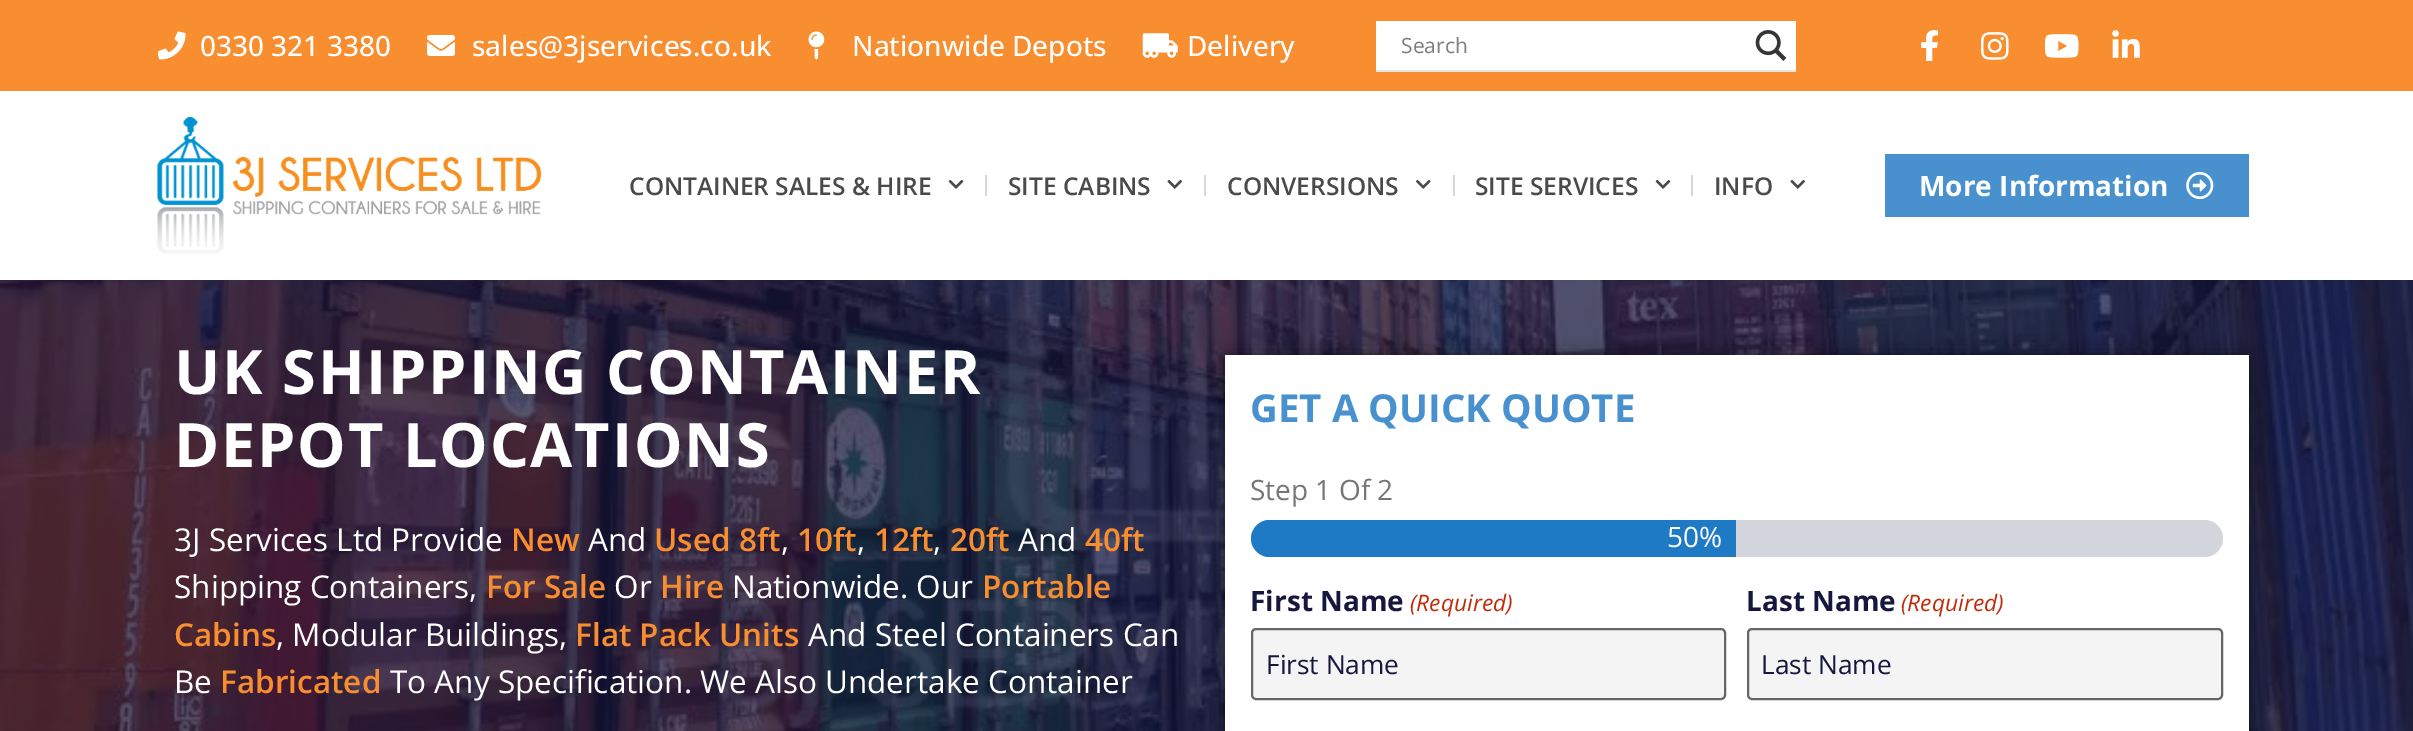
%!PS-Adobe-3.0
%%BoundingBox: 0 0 2413 731
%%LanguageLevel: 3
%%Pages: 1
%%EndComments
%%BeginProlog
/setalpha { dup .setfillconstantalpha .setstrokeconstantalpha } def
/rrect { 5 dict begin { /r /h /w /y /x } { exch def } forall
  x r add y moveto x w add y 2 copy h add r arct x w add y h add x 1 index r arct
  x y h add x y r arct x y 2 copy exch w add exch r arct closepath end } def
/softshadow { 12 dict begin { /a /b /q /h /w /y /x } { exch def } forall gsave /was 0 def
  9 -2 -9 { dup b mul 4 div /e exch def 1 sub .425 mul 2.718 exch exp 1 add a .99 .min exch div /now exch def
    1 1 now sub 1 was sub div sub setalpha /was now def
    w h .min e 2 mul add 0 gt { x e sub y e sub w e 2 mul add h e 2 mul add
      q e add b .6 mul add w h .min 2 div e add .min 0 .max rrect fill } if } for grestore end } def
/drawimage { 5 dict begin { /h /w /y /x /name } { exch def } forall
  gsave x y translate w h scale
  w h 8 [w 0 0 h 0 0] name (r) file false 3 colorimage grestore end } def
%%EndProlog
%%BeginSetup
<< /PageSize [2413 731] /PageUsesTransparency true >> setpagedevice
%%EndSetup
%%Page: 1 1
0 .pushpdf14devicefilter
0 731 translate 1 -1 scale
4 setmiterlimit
1 setgray
0 0 2413 731 rectfill
0.973 0.557 0.188 setrgbcolor
0 0 2413 91 rectfill
(images/1.raw) 158 31 28 29 drawimage
(images/2.raw) 427 35 28 21 drawimage
(images/3.raw) 808 31 17 29 drawimage
(images/4.raw) 1142 33 36 25 drawimage
0.894 setgray
newpath 1376 70 moveto 1376 72 lineto 1796 72 lineto 1796 23 lineto 1796 70 lineto closepath fill
1 setgray
1376 21 420 49 rectfill
(images/5.raw) 1755 30 32 31 drawimage
(images/6.raw) 1921 30 18 31 drawimage
(images/7.raw) 1981 32 28 28 drawimage
(images/8.raw) 2044 34 35 24 drawimage
(images/9.raw) 2112 30 28 28 drawimage
(images/10.raw) 157 117 385 137 drawimage
(images/11.raw) 948 179 16 10 drawimage
0.843 setgray
985 175 2 21 rectfill
(images/12.raw) 1167 179 15 10 drawimage
1204 175 2 21 rectfill
(images/13.raw) 1416 179 15 10 drawimage
1453 175 2 21 rectfill
(images/11.raw) 1655 179 16 10 drawimage
1691 175 2 21 rectfill
(images/12.raw) 1790 179 15 10 drawimage
0.286 0.569 0.808 setrgbcolor
1885 154 364 63 rectfill
(images/14.raw) 2186 171 28 29 drawimage
(images/15.raw) 0 280 2413 451 drawimage
0 setgray
1225 355 1024 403 0 9 0.5 softshadow
1 setgray
1225 355 1024 376 rectfill
0.824 0.839 0.863 setrgbcolor
1251 520 972 37 18.5 rrect fill
0.118 0.478 0.769 setrgbcolor
newpath 1269.5 520 moveto 1736 520 lineto 1736 557 lineto 1269.5 557 lineto 1259.5 557 1251 548.5 1251 538.5 curveto 1251 528.5 1259.5 520 1269.5 520 curveto closepath fill
0.957 setgray
1252 629 473 70 4 rrect gsave fill grestore
0.4 setgray
2 setlinewidth
stroke
0.957 setgray
1748 629 474 70 4 rrect gsave fill grestore
0.4 setgray
stroke
/OpenSans-Medium [28 0 0 -28 0 0] selectfont
1 setgray
200 56 moveto (0330 321 3380) show
472 56 moveto (sales@3jservices.co.uk) show
852 56 moveto (Nationwide Depots) show
1187 56 moveto (Delivery) show
/OpenSans-Regular [21 0 0 -21 0 0] selectfont
0.49 setgray
1401 53 moveto (Search) show
/OpenSans-SemiBold [24.5 0 0 -24.5 0 0] selectfont
0.29 setgray
629 195 moveto (CONTAINER SALES & HIRE) show
1008 195 moveto (SITE CABINS) show
1227 195 moveto (CONVERSIONS) show
1475 195 moveto (SITE SERVICES) show
1714 195 moveto (INFO) show
/OpenSans-Bold [28 0 0 -28 0 0] selectfont
1 setgray
1919 196 moveto (More Information) show
/OpenSans-Bold [61.25 0 0 -61.25 0 0] selectfont
174 394 moveto 1.75 0 (UK SHIPPING CONTAINER) ashow
174 467 moveto 1.75 0 (DEPOT LOCATIONS) ashow
/OpenSans-Regular [31.5 0 0 -31.5 0 0] selectfont
174 551 moveto (3J Services Ltd Provide) show
/OpenSans-SemiBold [31.5 0 0 -31.5 0 0] selectfont
0.973 0.557 0.188 setrgbcolor
511 551 moveto (New) show
/OpenSans-Regular [31.5 0 0 -31.5 0 0] selectfont
1 setgray
588 551 moveto (And) show
/OpenSans-SemiBold [31.5 0 0 -31.5 0 0] selectfont
0.973 0.557 0.188 setrgbcolor
654 551 moveto (Used 8ft) show
/OpenSans-Regular [31.5 0 0 -31.5 0 0] selectfont
1 setgray
781 551 moveto (,) show
/OpenSans-SemiBold [31.5 0 0 -31.5 0 0] selectfont
0.973 0.557 0.188 setrgbcolor
797 551 moveto (10ft) show
/OpenSans-Regular [31.5 0 0 -31.5 0 0] selectfont
1 setgray
857 551 moveto (,) show
/OpenSans-SemiBold [31.5 0 0 -31.5 0 0] selectfont
0.973 0.557 0.188 setrgbcolor
874 551 moveto (12ft) show
/OpenSans-Regular [31.5 0 0 -31.5 0 0] selectfont
1 setgray
933 551 moveto (,) show
/OpenSans-SemiBold [31.5 0 0 -31.5 0 0] selectfont
0.973 0.557 0.188 setrgbcolor
950 551 moveto (20ft) show
/OpenSans-Regular [31.5 0 0 -31.5 0 0] selectfont
1 setgray
1018 551 moveto (And) show
/OpenSans-SemiBold [31.5 0 0 -31.5 0 0] selectfont
0.973 0.557 0.188 setrgbcolor
1085 551 moveto (40ft) show
/OpenSans-Regular [31.5 0 0 -31.5 0 0] selectfont
1 setgray
174 598 moveto (Shipping Containers,) show
/OpenSans-SemiBold [31.5 0 0 -31.5 0 0] selectfont
0.973 0.557 0.188 setrgbcolor
486 598 moveto (For Sale) show
/OpenSans-Regular [31.5 0 0 -31.5 0 0] selectfont
1 setgray
614 598 moveto (Or) show
/OpenSans-SemiBold [31.5 0 0 -31.5 0 0] selectfont
0.973 0.557 0.188 setrgbcolor
660 598 moveto (Hire) show
/OpenSans-Regular [31.5 0 0 -31.5 0 0] selectfont
1 setgray
732 598 moveto (Nationwide. Our) show
/OpenSans-SemiBold [31.5 0 0 -31.5 0 0] selectfont
0.973 0.557 0.188 setrgbcolor
982 598 moveto (Portable) show
174 646 moveto (Cabins) show
/OpenSans-Regular [31.5 0 0 -31.5 0 0] selectfont
1 setgray
276 646 moveto (, Modular Buildings,) show
/OpenSans-SemiBold [31.5 0 0 -31.5 0 0] selectfont
0.973 0.557 0.188 setrgbcolor
575 646 moveto (Flat Pack Units) show
/OpenSans-Regular [31.5 0 0 -31.5 0 0] selectfont
1 setgray
808 646 moveto (And Steel Containers Can) show
174 693 moveto (Be) show
/OpenSans-SemiBold [31.5 0 0 -31.5 0 0] selectfont
0.973 0.557 0.188 setrgbcolor
220 693 moveto (Fabricated) show
/OpenSans-Regular [31.5 0 0 -31.5 0 0] selectfont
1 setgray
390 693 moveto (To Any Specification. We Also Undertake Container) show
/OpenSans-Bold [38.5 0 0 -38.5 0 0] selectfont
0.286 0.569 0.808 setrgbcolor
1250 422 moveto (GET A QUICK QUOTE) show
/OpenSans-Regular [28 0 0 -28 0 0] selectfont
0.463 setgray
1250 500 moveto (Step 1 Of 2) show
1 setgray
1667 547 moveto (50%) show
/OpenSans-Bold [28 0 0 -28 0 0] selectfont
0.086 0.086 0.247 setrgbcolor
1250 611 moveto (First Name) show
/OpenSans-Italic [22.75 0 0 -22.75 0 0] selectfont
0.753 0.169 0.039 setrgbcolor
1410 611 moveto (\(Required\)) show
/OpenSans-Regular [26.25 0 0 -26.25 0 0] selectfont
0.086 0.086 0.247 setrgbcolor
1266 674 moveto (First Name) show
/OpenSans-Bold [28 0 0 -28 0 0] selectfont
1746 611 moveto (Last Name) show
/OpenSans-Italic [22.75 0 0 -22.75 0 0] selectfont
0.753 0.169 0.039 setrgbcolor
1901 611 moveto (\(Required\)) show
/OpenSans-Regular [26.25 0 0 -26.25 0 0] selectfont
0.086 0.086 0.247 setrgbcolor
1761 674 moveto (Last Name) show
.poppdf14devicefilter showpage
%%EOF
